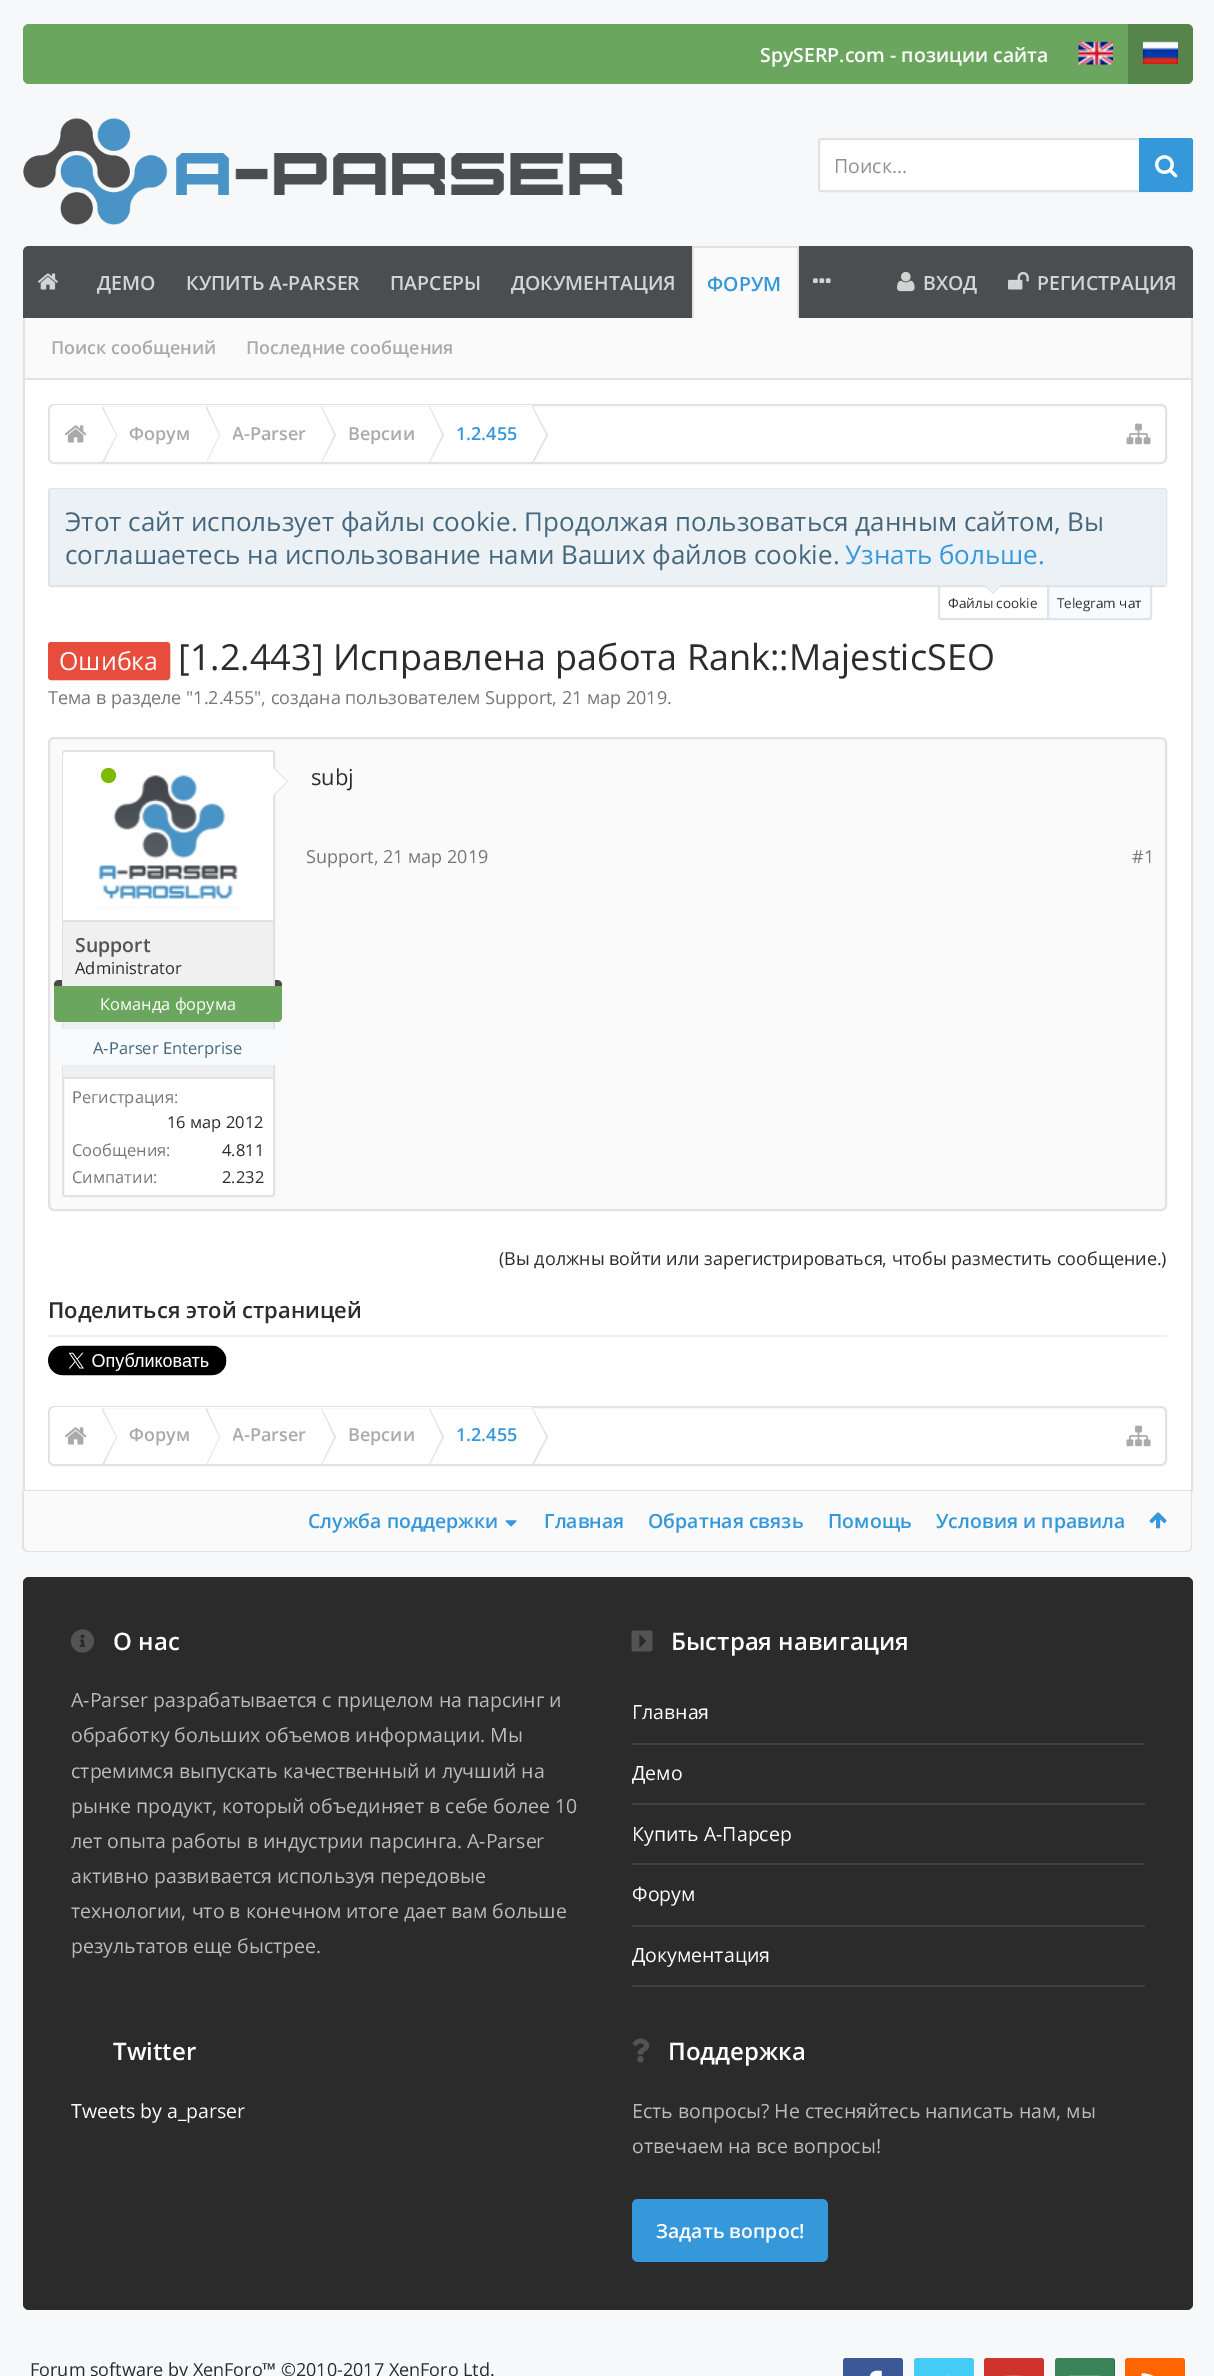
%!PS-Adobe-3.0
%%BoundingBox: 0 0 1214 2376
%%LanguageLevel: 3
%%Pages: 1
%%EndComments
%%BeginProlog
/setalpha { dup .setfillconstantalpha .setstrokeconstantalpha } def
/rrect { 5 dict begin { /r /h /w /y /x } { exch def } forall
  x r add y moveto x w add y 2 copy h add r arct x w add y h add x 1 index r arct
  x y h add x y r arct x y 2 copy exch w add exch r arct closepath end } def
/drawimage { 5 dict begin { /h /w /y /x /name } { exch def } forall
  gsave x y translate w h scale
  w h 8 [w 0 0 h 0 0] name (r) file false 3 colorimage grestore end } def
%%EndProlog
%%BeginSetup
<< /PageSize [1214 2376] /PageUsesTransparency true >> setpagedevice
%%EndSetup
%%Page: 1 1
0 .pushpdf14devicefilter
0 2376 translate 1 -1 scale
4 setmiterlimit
0.965 0.973 0.976 setrgbcolor
0 0 1214 2376 rectfill
0.42 0.651 0.369 setrgbcolor
23 24 1170 60 6 rrect fill
(images/1.raw) 1078 41 35 24 drawimage
0.2 setalpha
0 setgray
newpath 1128 24 moveto 1187 24 lineto 1190.5 24 1193 26.5 1193 30 curveto 1193 78 lineto 1193 81.5 1190.5 84 1187 84 curveto 1128 84 lineto closepath fill
1 setalpha
(images/2.raw) 1143 41 35 23 drawimage
(images/3.raw) 23 118 600 107 drawimage
1 setgray
819 139 373 52 2 rrect gsave fill grestore
0.886 setgray
2 setlinewidth
stroke
0.204 0.596 0.859 setrgbcolor
newpath 1139 138 moveto 1190 138 lineto 1191.5 138 1193 139.5 1193 141 curveto 1193 189 lineto 1193 190.5 1191.5 192 1190 192 curveto 1139 192 lineto closepath fill
(images/4.raw) 1155 155 23 23 drawimage
0.29 0.306 0.318 setrgbcolor
newpath 29 246 moveto 1187 246 lineto 1190.5 246 1193 248.5 1193 252 curveto 1193 318 lineto 23 318 lineto 23 252 lineto 23 248.5 25.5 246 29 246 curveto closepath fill
(images/5.raw) 37 273 21 17 drawimage
0.98 setgray
694 248 103 69 rectfill
0.886 setgray
692 246 106 2 rectfill
797 246 2 72 rectfill
0.98 setgray
692 317 106 1 rectfill
0.886 setgray
692 246 2 72 rectfill
0.98 setgray
25 318 1166 60 rectfill
0.886 setgray
1191 318 2 1173 rectfill
23 378 1170 2 rectfill
23 318 2 62 rectfill
(images/6.raw) 813 278 18 6 drawimage
(images/7.raw) 897 271 18 21 drawimage
(images/8.raw) 1008 271 21 19 drawimage
1 setgray
25 380 1166 1110 rectfill
0.886 setgray
23 1490 1170 2 rectfill
23 380 2 1111 rectfill
49 405 1117 58 5 rrect stroke
gsave
50 405 1116 57 5 rrect clip newpath
1 setgray
newpath 56 405 moveto 102 405 lineto 102 464 lineto 56 464 lineto 52.5 464 50 461.5 50 458 curveto 50 411 lineto 50 407.5 52.5 405 56 405 curveto closepath fill
grestore
(images/9.raw) 65 425 22 18 drawimage
1 setgray
102 405 431 1 rectfill
0.886 setgray
newpath 104 462 moveto 102 462 lineto 102 405 lineto 117 435 lineto closepath fill
1 setgray
newpath 102 462 moveto 100 462 lineto 100 405 lineto 116 435 lineto closepath fill
0.886 setgray
newpath 207 462 moveto 206 462 lineto 206 405 lineto 220 435 lineto closepath fill
1 setgray
newpath 206 462 moveto 204 462 lineto 204 405 lineto 219 435 lineto closepath fill
0.886 setgray
newpath 322 462 moveto 321 462 lineto 321 405 lineto 336 435 lineto closepath fill
1 setgray
newpath 321 462 moveto 320 462 lineto 320 405 lineto 334 435 lineto closepath fill
0.886 setgray
newpath 430 462 moveto 429 462 lineto 429 405 lineto 444 435 lineto closepath fill
1 setgray
newpath 429 462 moveto 428 462 lineto 428 405 lineto 442 435 lineto closepath fill
0.886 setgray
newpath 534 462 moveto 532 462 lineto 532 405 lineto 548 435 lineto closepath fill
1 setgray
newpath 532 462 moveto 531 462 lineto 531 405 lineto 546 435 lineto closepath fill
(images/10.raw) 1126 423 25 22 drawimage
0.867 0.898 0.918 setrgbcolor
49 489 1117 97 2 rrect stroke
0.925 0.945 0.961 setrgbcolor
50 489 1116 96 rectfill
1 setgray
newpath 939 586 moveto 1048 586 lineto 1048 619 lineto 941 619 lineto 940 619 939 618 939 617 curveto closepath gsave fill grestore
0.867 0.898 0.918 setrgbcolor
stroke
newpath 985.5 586.5 moveto 1000.5 586.5 lineto 993 594 lineto closepath fill
0.925 0.945 0.961 setrgbcolor
newpath 985.5 585 moveto 1000.5 585 lineto 993 592.5 lineto closepath fill
0.973 0.984 0.992 setrgbcolor
newpath 1048 586 moveto 1151 586 lineto 1151 617 lineto 1151 618 1150 619 1149 619 curveto 1048 619 lineto closepath gsave fill grestore
0.867 0.898 0.918 setrgbcolor
stroke
0.906 0.298 0.235 setrgbcolor
49 643 120 36 2 rrect gsave fill grestore
stroke
0.98 setgray
49 738 1117 472 5 rrect gsave fill grestore
0.886 setgray
stroke
1 setgray
63 751 211 445 2 rrect gsave fill grestore
0.886 setgray
stroke
1 setgray
newpath 66 752 moveto 270 752 lineto 271.5 752 273 753.5 273 755 curveto 273 920 lineto 63 920 lineto 63 755 lineto 63 753.5 64.5 752 66 752 curveto closepath fill
0.965 0.973 0.976 setrgbcolor
96 764 144 144 3 rrect fill
(images/11.raw) 96 764 144 143 drawimage
0.498 0.725 0 setrgbcolor
newpath 108.5 775.5 7.5 0 360 arc closepath fill
0.886 setgray
newpath 273 796.5 moveto 273 766.5 lineto 288 781.5 lineto closepath fill
1 setgray
newpath 271.5 796.5 moveto 271.5 766.5 lineto 286.5 781.5 lineto closepath fill
0.941 setgray
63 922 210 155 rectfill
0.886 setgray
63 920 210 2 rectfill
63 1077 210 2 rectfill
0.42 0.651 0.369 setrgbcolor
newpath 54 986 moveto 282 986 lineto 282 1017 lineto 282 1020 280 1022 277 1022 curveto 59 1022 lineto 56 1022 54 1020 54 1017 curveto closepath fill
0.294 setgray
newpath 59 980 moveto 62 980 lineto 62 986 lineto 54 986 lineto 54 985 lineto 54 982 56 980 59 980 curveto closepath fill
newpath 275 980 moveto 277 980 lineto 280 980 282 982 282 985 curveto 282 986 lineto 275 986 lineto closepath fill
0.973 0.984 0.992 setrgbcolor
newpath 54 1029 moveto 282 1029 lineto 282 1060 lineto 282 1063 280 1065 277 1065 curveto 59 1065 lineto 56 1065 54 1063 54 1060 curveto closepath fill
newpath 59 1023 moveto 62 1023 lineto 62 1029 lineto 54 1029 lineto 54 1028 lineto 54 1025 56 1023 59 1023 curveto closepath fill
newpath 275 1023 moveto 277 1023 lineto 280 1023 282 1025 282 1028 curveto 282 1029 lineto 275 1029 lineto closepath fill
0.941 setgray
48 1335 1119 2 rectfill
(images/12.raw) 48 1345 179 31 drawimage
0.886 setgray
49 1407 1117 58 5 rrect stroke
gsave
50 1407 1116 57 5 rrect clip newpath
1 setgray
newpath 56 1407 moveto 102 1407 lineto 102 1466 lineto 56 1466 lineto 52.5 1466 50 1463.5 50 1460 curveto 50 1413 lineto 50 1409.5 52.5 1407 56 1407 curveto closepath fill
grestore
(images/9.raw) 65 1427 22 18 drawimage
1 setgray
102 1407 431 1 rectfill
0.886 setgray
newpath 104 1464 moveto 102 1464 lineto 102 1407 lineto 117 1437 lineto closepath fill
1 setgray
newpath 102 1464 moveto 100 1464 lineto 100 1407 lineto 116 1437 lineto closepath fill
0.886 setgray
newpath 207 1464 moveto 206 1464 lineto 206 1407 lineto 220 1437 lineto closepath fill
1 setgray
newpath 206 1464 moveto 204 1464 lineto 204 1407 lineto 219 1437 lineto closepath fill
0.886 setgray
newpath 322 1464 moveto 321 1464 lineto 321 1407 lineto 336 1437 lineto closepath fill
1 setgray
newpath 321 1464 moveto 320 1464 lineto 320 1407 lineto 334 1437 lineto closepath fill
0.886 setgray
newpath 430 1464 moveto 429 1464 lineto 429 1407 lineto 444 1437 lineto closepath fill
1 setgray
newpath 429 1464 moveto 428 1464 lineto 428 1407 lineto 442 1437 lineto closepath fill
0.886 setgray
newpath 534 1464 moveto 532 1464 lineto 532 1407 lineto 548 1437 lineto closepath fill
1 setgray
newpath 532 1464 moveto 531 1464 lineto 531 1407 lineto 546 1437 lineto closepath fill
(images/10.raw) 1126 1425 25 22 drawimage
0.98 setgray
newpath 24 1491 moveto 1191 1491 lineto 1191 1546 lineto 1191 1549 1189 1551 1186 1551 curveto 29 1551 lineto 26 1551 24 1549 24 1546 curveto closepath fill
0.886 setgray
newpath 22 1491 moveto 1192 1491 lineto 1192 1546 lineto 1192 1550 1190 1552 1186 1552 curveto 28 1552 lineto 25 1552 22 1550 22 1546 curveto closepath 24 1491 moveto 1191 1491 lineto 1191 1546 lineto 1191 1549 1189 1551 1186 1551 curveto 28 1551 lineto 26 1551 24 1549 24 1546 curveto closepath eofill
(images/13.raw) 505 1520 12 7 drawimage
(images/14.raw) 1149 1512 18 17 drawimage
0.169 setgray
23 1577 1170 733 6 rrect fill
(images/15.raw) 71 1629 23 24 drawimage
(images/16.raw) 631 1630 22 22 drawimage
0.251 setgray
632 1743 513 2 rectfill
632 1803 513 2 rectfill
632 1863 513 2 rectfill
632 1925 513 2 rectfill
632 1985 513 2 rectfill
(images/17.raw) 632 2038 18 25 drawimage
0.204 0.596 0.859 setrgbcolor
632 2199 196 63 6 rrect fill
0.231 0.349 0.596 setrgbcolor
843 2358 60 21 3 rrect fill
(images/18.raw) 869 2370 13 6 drawimage
0.267 0.8 0.965 setrgbcolor
914 2358 60 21 3 rrect fill
(images/19.raw) 947 2375 3 1 drawimage
0.808 0.2 0.176 setrgbcolor
984 2358 60 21 3 rrect fill
(images/20.raw) 1005 2375 18 1 drawimage
0.227 0.518 0.353 setrgbcolor
1055 2358 60 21 3 rrect fill
0.2 setalpha
0 setgray
newpath 1055 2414 moveto 1056 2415 1057 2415 1058 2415 curveto 1112 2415 lineto 1113 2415 1114 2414 1114 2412 curveto 1114 2359 lineto 1115 2359 1115 2360 1115 2361 curveto 1115 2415 lineto 1115 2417 1114 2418 1112 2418 curveto 1058 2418 lineto 1056 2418 1055 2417 1055 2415 curveto closepath fill
1 setalpha
(images/21.raw) 1069 2375 31 1 drawimage
1 0.4 0 setrgbcolor
1125 2358 60 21 3 rrect fill
(images/22.raw) 1141 2373 13 3 drawimage
/OpenSans-SemiBold [19.5 0 0 -19.5 0 0] selectfont
1 setgray
760 62 moveto (SpySERP.com - позиции сайта) show
/OpenSans-Regular [19.5 0 0 -19.5 0 0] selectfont
0.565 setgray
834 173 moveto (Поиск...) show
/OpenSans-SemiBold [19.5 0 0 -19.5 0 0] selectfont
0.824 0.827 0.831 setrgbcolor
97 290 moveto (ДЕМО) show
186 290 moveto (КУПИТЬ A-PARSER) show
390 290 moveto (ПАРСЕРЫ) show
511 290 moveto (ДОКУМЕНТАЦИЯ) show
0.204 0.596 0.859 setrgbcolor
707 291 moveto (ФОРУМ) show
/OpenSans-SemiBold [18 0 0 -18 0 0] selectfont
0.667 setgray
51 354 moveto (Поиск сообщений) show
246 354 moveto (Последние сообщения) show
/OpenSans-SemiBold [19.5 0 0 -19.5 0 0] selectfont
0.824 0.827 0.831 setrgbcolor
923 290 moveto (ВХОД) show
1037 290 moveto (РЕГИСТРАЦИЯ) show
/OpenSans-SemiBold [18 0 0 -18 0 0] selectfont
0.667 setgray
129 440 moveto (Форум) show
gsave
233 405 73 57 rectclip
232 440 moveto (A-Parser) show
grestore
348 440 moveto (Версии) show
0.204 0.596 0.859 setrgbcolor
456 440 moveto (1.2.455) show
/OpenSans-Regular [26 0 0 -26 0 0] selectfont
0.275 0.4 0.486 setrgbcolor
65 531 moveto (Этот сайт использует файлы cookie. Продолжая пользоваться данным сайтом, Вы) show
65 564 moveto (соглашаетесь на использование нами Ваших файлов cookie.) show
0.204 0.596 0.859 setrgbcolor
845 564 moveto (Узнать больше.) show
/OpenSans-Regular [13.5 0 0 -13.5 0 0] selectfont
0.173 setgray
948 608 moveto (Файлы cookie) show
1057 608 moveto (Telegram чат) show
/OpenSans-Regular [25 0 0 -25 0 0] selectfont
1 setgray
59 670 moveto (Ошибка) show
/OpenSans-Regular [36 0 0 -36 0 0] selectfont
0.173 setgray
178 670 moveto ([1.2.443] Исправлена работа Rank::MajesticSEO) show
/OpenSans-Regular [18 0 0 -18 0 0] selectfont
0.463 setgray
48 704 moveto (Тема в разделе "1.2.455", создана пользователем Support, 21 мар 2019.) show
/OpenSans-Regular [22 0 0 -22 0 0] selectfont
0.173 setgray
311 785 moveto (subj) show
/OpenSans-Regular [18 0 0 -18 0 0] selectfont
0.463 setgray
306 863 moveto (Support, 21 мар 2019) show
1132 863 moveto (#1) show
/OpenSans-SemiBold [19.5 0 0 -19.5 0 0] selectfont
0.325 setgray
75 952 moveto (Support) show
/OpenSans-Regular [16.5 0 0 -16.5 0 0] selectfont
0.173 setgray
75 974 moveto (Administrator) show
1 setgray
100 1010 moveto (Команда форума) show
0.275 0.4 0.486 setrgbcolor
93 1054 moveto (A-Parser Enterprise) show
0.463 setgray
72 1103 moveto (Регистрация:) show
0.173 setgray
167 1128 moveto (16 мар 2012) show
0.463 setgray
72 1156 moveto (Сообщения:) show
0.173 setgray
222 1156 moveto (4.811) show
0.463 setgray
72 1183 moveto (Симпатии:) show
0.173 setgray
222 1183 moveto (2.232) show
/OpenSans-Regular [18 0 0 -18 0 0] selectfont
499 1265 moveto (\(Вы должны войти или зарегистрироваться, чтобы разместить сообщение.\)) show
/OpenSans-SemiBold [22 0 0 -22 0 0] selectfont
48 1318 moveto (Поделиться этой страницей) show
/OpenSans-SemiBold [18 0 0 -18 0 0] selectfont
0.667 setgray
129 1441 moveto (Форум) show
gsave
233 1407 73 57 rectclip
232 1441 moveto (A-Parser) show
grestore
348 1441 moveto (Версии) show
0.204 0.596 0.859 setrgbcolor
456 1441 moveto (1.2.455) show
/OpenSans-SemiBold [19.5 0 0 -19.5 0 0] selectfont
308 1528 moveto (Служба поддержки) show
544 1528 moveto (Главная) show
648 1528 moveto (Обратная связь) show
828 1528 moveto (Помощь) show
936 1528 moveto (Условия и правила) show
/OpenSans-SemiBold [24 0 0 -24 0 0] selectfont
1 setgray
113 1650 moveto (О нас) show
/OpenSans-Regular [19.5 0 0 -19.5 0 0] selectfont
0.733 setgray
71 1707 moveto (A-Parser разрабатывается с прицелом на парсинг и) show
71 1742 moveto (обработку больших объемов информации. Мы) show
71 1778 moveto (стремимся выпускать качественный и лучший на) show
71 1813 moveto (рынке продукт, который объединяет в себе более 10) show
71 1848 moveto (лет опыта работы в индустрии парсинга. A-Parser) show
71 1883 moveto (активно развивается используя передовые) show
71 1918 moveto (технологии, что в конечном итоге дает вам больше) show
71 1953 moveto (результатов еще быстрее.) show
/OpenSans-SemiBold [24 0 0 -24 0 0] selectfont
1 setgray
671 1650 moveto (Быстрая навигация) show
/OpenSans-Regular [19.5 0 0 -19.5 0 0] selectfont
632 1719 moveto (Главная) show
632 1780 moveto (Демо) show
632 1841 moveto (Купить А-Парсер) show
632 1901 moveto (Форум) show
632 1962 moveto (Документация) show
/OpenSans-SemiBold [24 0 0 -24 0 0] selectfont
113 2060 moveto (Twitter) show
/OpenSans-Regular [19.5 0 0 -19.5 0 0] selectfont
71 2118 moveto (Tweets by a_parser) show
/OpenSans-SemiBold [24 0 0 -24 0 0] selectfont
668 2060 moveto (Поддержка) show
/OpenSans-Regular [19.5 0 0 -19.5 0 0] selectfont
0.733 setgray
632 2118 moveto (Есть вопросы? Не стесняйтесь написать нам, мы) show
632 2153 moveto (отвечаем на все вопросы!) show
/OpenSans-SemiBold [19.5 0 0 -19.5 0 0] selectfont
1 setgray
656 2238 moveto (Задать вопрос!) show
/OpenSans-Regular [18 0 0 -18 0 0] selectfont
0.173 setgray
30 2376 moveto (Forum software by XenForo™ ©2010-2017 XenForo Ltd.) show
.poppdf14devicefilter showpage
%%EOF
